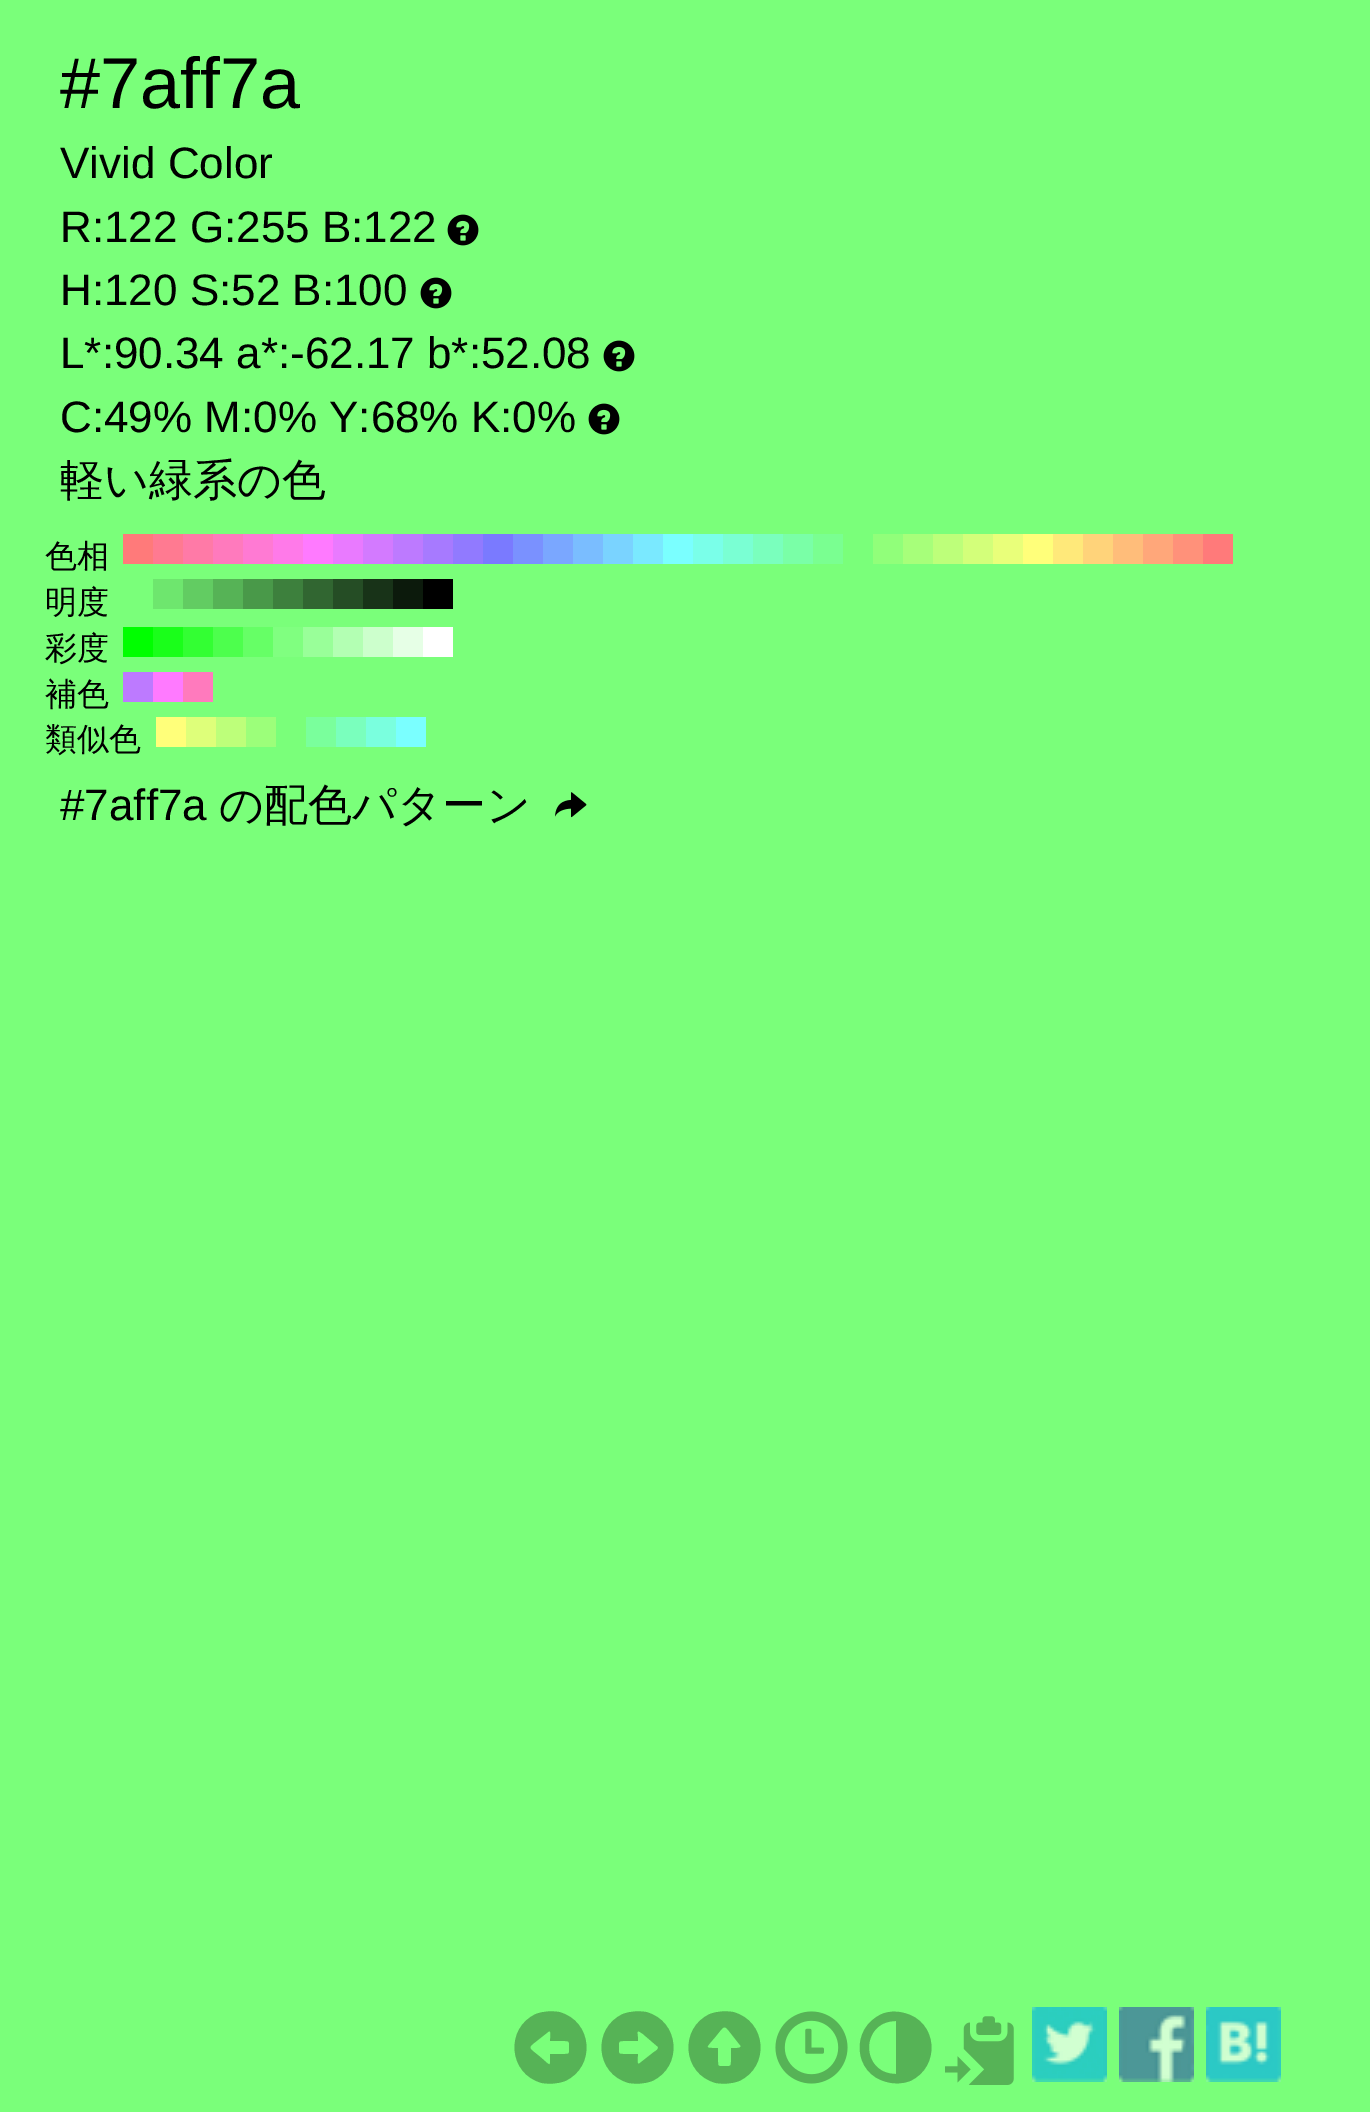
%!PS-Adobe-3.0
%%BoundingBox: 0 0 1370 2112
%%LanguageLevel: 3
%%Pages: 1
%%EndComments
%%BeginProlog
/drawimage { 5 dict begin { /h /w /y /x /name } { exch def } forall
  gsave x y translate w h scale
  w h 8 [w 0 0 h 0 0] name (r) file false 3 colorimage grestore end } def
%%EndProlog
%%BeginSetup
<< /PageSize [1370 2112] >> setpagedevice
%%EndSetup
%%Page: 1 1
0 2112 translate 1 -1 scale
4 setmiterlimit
0.478 1 0.478 setrgbcolor
0 0 1370 2112 rectfill
(images/1.raw) 447 214 32 32 drawimage
(images/1.raw) 420 277 32 32 drawimage
(images/1.raw) 603 340 32 32 drawimage
(images/1.raw) 588 403 32 32 drawimage
1 0.478 0.478 setrgbcolor
123 534 30 30 rectfill
1 0.478 0.569 setrgbcolor
153 534 30 30 rectfill
1 0.478 0.655 setrgbcolor
183 534 30 30 rectfill
1 0.478 0.741 setrgbcolor
213 534 30 30 rectfill
1 0.478 0.827 setrgbcolor
243 534 30 30 rectfill
1 0.478 0.914 setrgbcolor
273 534 30 30 rectfill
1 0.478 1 setrgbcolor
303 534 30 30 rectfill
0.914 0.478 1 setrgbcolor
333 534 30 30 rectfill
0.827 0.478 1 setrgbcolor
363 534 30 30 rectfill
0.741 0.478 1 setrgbcolor
393 534 30 30 rectfill
0.655 0.478 1 setrgbcolor
423 534 30 30 rectfill
0.569 0.478 1 setrgbcolor
453 534 30 30 rectfill
0.478 0.478 1 setrgbcolor
483 534 30 30 rectfill
0.478 0.569 1 setrgbcolor
513 534 30 30 rectfill
0.478 0.655 1 setrgbcolor
543 534 30 30 rectfill
0.478 0.741 1 setrgbcolor
573 534 30 30 rectfill
0.478 0.827 1 setrgbcolor
603 534 30 30 rectfill
0.478 0.914 1 setrgbcolor
633 534 30 30 rectfill
0.478 1 1 setrgbcolor
663 534 30 30 rectfill
0.478 1 0.914 setrgbcolor
693 534 30 30 rectfill
0.478 1 0.827 setrgbcolor
723 534 30 30 rectfill
0.478 1 0.741 setrgbcolor
753 534 30 30 rectfill
0.478 1 0.655 setrgbcolor
783 534 30 30 rectfill
0.478 1 0.569 setrgbcolor
813 534 30 30 rectfill
0.569 1 0.478 setrgbcolor
873 534 30 30 rectfill
0.655 1 0.478 setrgbcolor
903 534 30 30 rectfill
0.741 1 0.478 setrgbcolor
933 534 30 30 rectfill
0.827 1 0.478 setrgbcolor
963 534 30 30 rectfill
0.914 1 0.478 setrgbcolor
993 534 30 30 rectfill
1 1 0.478 setrgbcolor
1023 534 30 30 rectfill
1 0.914 0.478 setrgbcolor
1053 534 30 30 rectfill
1 0.827 0.478 setrgbcolor
1083 534 30 30 rectfill
1 0.741 0.478 setrgbcolor
1113 534 30 30 rectfill
1 0.655 0.478 setrgbcolor
1143 534 30 30 rectfill
1 0.569 0.478 setrgbcolor
1173 534 30 30 rectfill
1 0.478 0.478 setrgbcolor
1203 534 30 30 rectfill
0.431 0.902 0.431 setrgbcolor
153 579 30 30 rectfill
0.384 0.8 0.384 setrgbcolor
183 579 30 30 rectfill
0.337 0.702 0.337 setrgbcolor
213 579 30 30 rectfill
0.286 0.6 0.286 setrgbcolor
243 579 30 30 rectfill
0.239 0.502 0.239 setrgbcolor
273 579 30 30 rectfill
0.192 0.4 0.192 setrgbcolor
303 579 30 30 rectfill
0.145 0.302 0.145 setrgbcolor
333 579 30 30 rectfill
0.094 0.2 0.094 setrgbcolor
363 579 30 30 rectfill
0.047 0.102 0.047 setrgbcolor
393 579 30 30 rectfill
0 setgray
423 579 30 30 rectfill
0 1 0 setrgbcolor
123 627 30 30 rectfill
0.102 1 0.102 setrgbcolor
153 627 30 30 rectfill
0.2 1 0.2 setrgbcolor
183 627 30 30 rectfill
0.302 1 0.302 setrgbcolor
213 627 30 30 rectfill
0.4 1 0.4 setrgbcolor
243 627 30 30 rectfill
0.502 1 0.502 setrgbcolor
273 627 30 30 rectfill
0.6 1 0.6 setrgbcolor
303 627 30 30 rectfill
0.702 1 0.702 setrgbcolor
333 627 30 30 rectfill
0.8 1 0.8 setrgbcolor
363 627 30 30 rectfill
0.902 1 0.902 setrgbcolor
393 627 30 30 rectfill
1 setgray
423 627 30 30 rectfill
0.741 0.478 1 setrgbcolor
123 672 30 30 rectfill
1 0.478 1 setrgbcolor
153 672 30 30 rectfill
1 0.478 0.741 setrgbcolor
183 672 30 30 rectfill
1 1 0.478 setrgbcolor
156 717 30 30 rectfill
0.871 1 0.478 setrgbcolor
186 717 30 30 rectfill
0.741 1 0.478 setrgbcolor
216 717 30 30 rectfill
0.612 1 0.478 setrgbcolor
246 717 30 30 rectfill
0.478 1 0.612 setrgbcolor
306 717 30 30 rectfill
0.478 1 0.741 setrgbcolor
336 717 30 30 rectfill
0.478 1 0.871 setrgbcolor
366 717 30 30 rectfill
0.478 1 1 setrgbcolor
396 717 30 30 rectfill
(images/2.raw) 555 792 32 26 drawimage
0.337 0.702 0.337 setrgbcolor
newpath 536 2014 moveto 544 2011 552 2011 559 2012 curveto 593 2021 596 2067 565 2081 curveto 557 2084 549 2084 542 2083 curveto 508 2074 505 2028 536 2014 curveto closepath 548 2032 moveto 534 2043 lineto 529 2047 529 2048 534 2052 curveto 539 2056 lineto 552 2067 550 2068 550 2054 curveto 565 2054 lineto 570 2054 569 2053 569 2048 curveto 569 2042 570 2041 565 2041 curveto 550 2041 lineto 550 2040 552 2028 548 2032 curveto closepath fill
newpath 623 2014 moveto 631 2011 639 2011 646 2012 curveto 680 2021 683 2067 652 2081 curveto 644 2084 636 2084 629 2083 curveto 595 2074 592 2028 623 2014 curveto closepath 657 2046 moveto 643 2034 lineto 635 2028 638 2033 638 2041 curveto 623 2041 lineto 618 2041 619 2042 619 2048 curveto 619 2053 618 2054 623 2054 curveto 638 2054 lineto 638 2055 636 2067 640 2063 curveto 654 2052 lineto 656 2051 660 2048 657 2046 curveto closepath fill
newpath 710 2014 moveto 718 2011 726 2011 733 2012 curveto 767 2021 770 2067 739 2081 curveto 731 2084 723 2084 716 2083 curveto 682 2074 679 2028 710 2014 curveto closepath 740 2045 moveto 729 2031 lineto 725 2026 724 2026 720 2031 curveto 716 2036 lineto 705 2049 704 2048 718 2048 curveto 718 2062 lineto 718 2067 719 2066 724 2066 curveto 730 2066 731 2067 731 2062 curveto 731 2048 lineto 732 2048 744 2049 740 2045 curveto closepath fill
(images/3.raw) 775 2011 73 73 drawimage
newpath 882 2014 moveto 889 2011 897 2011 904 2013 curveto 938 2021 941 2067 910 2081 curveto 902 2084 894 2084 887 2082 curveto 853 2074 850 2028 882 2014 curveto closepath 896 2074 moveto 896 2021 lineto 860 2021 860 2074 896 2074 curveto closepath fill
(images/4.raw) 945 2016 69 69 drawimage
(images/5.raw) 1032 2007 75 75 drawimage
(images/6.raw) 1119 2007 75 75 drawimage
(images/7.raw) 1206 2007 75 75 drawimage
/LiberationSans-Regular [72 0 0 -72 0 0] selectfont
0 setgray
60 108 moveto (#7aff7a) show
/LiberationSans-Regular [44 0 0 -44 0 0] selectfont
60 178 moveto (Vivid Color) show
60 242 moveto (R:122 G:255 B:122) show
60 305 moveto (H:120 S:52 B:100) show
60 368 moveto (L*:90.34 a*:-62.17 b*:52.08) show
60 432 moveto (C:49% M:0% Y:68% K:0%) show
/WenQuanYiZenHei-Medium [44 0 0 -44 0 0] selectfont
60 495 moveto (軽い緑系の色) show
/WenQuanYiZenHei-Medium [32 0 0 -32 0 0] selectfont
45 567 moveto (色相) show
45 613 moveto (明度) show
45 659 moveto (彩度) show
45 705 moveto (補色) show
45 750 moveto (類似色) show
/LiberationSans-Regular [44 0 0 -44 0 0] selectfont
60 820 moveto (#7aff7a) show
/WenQuanYiZenHei-Medium [44 0 0 -44 0 0] selectfont
219 820 moveto (の配色パターン) show
showpage
%%EOF
